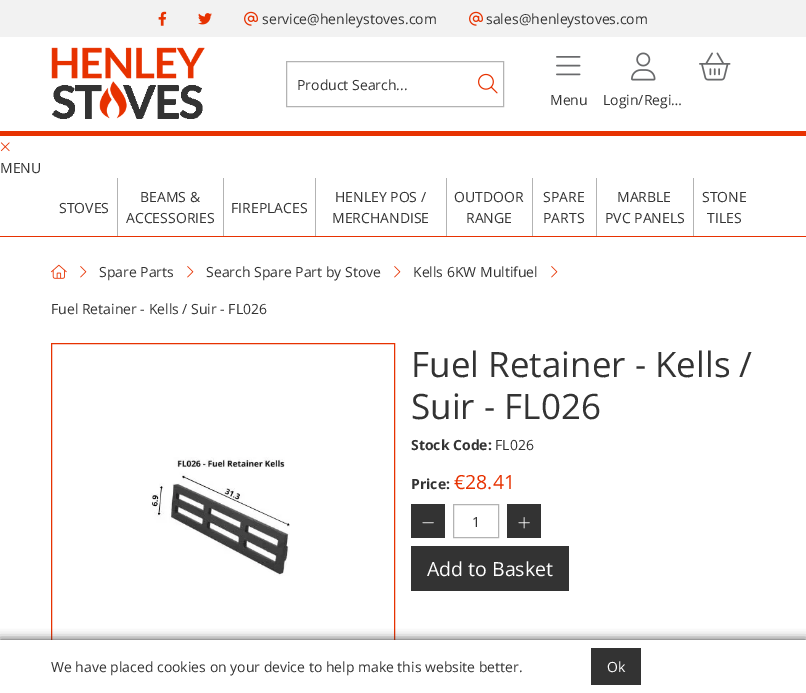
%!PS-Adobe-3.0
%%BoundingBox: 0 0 806 693
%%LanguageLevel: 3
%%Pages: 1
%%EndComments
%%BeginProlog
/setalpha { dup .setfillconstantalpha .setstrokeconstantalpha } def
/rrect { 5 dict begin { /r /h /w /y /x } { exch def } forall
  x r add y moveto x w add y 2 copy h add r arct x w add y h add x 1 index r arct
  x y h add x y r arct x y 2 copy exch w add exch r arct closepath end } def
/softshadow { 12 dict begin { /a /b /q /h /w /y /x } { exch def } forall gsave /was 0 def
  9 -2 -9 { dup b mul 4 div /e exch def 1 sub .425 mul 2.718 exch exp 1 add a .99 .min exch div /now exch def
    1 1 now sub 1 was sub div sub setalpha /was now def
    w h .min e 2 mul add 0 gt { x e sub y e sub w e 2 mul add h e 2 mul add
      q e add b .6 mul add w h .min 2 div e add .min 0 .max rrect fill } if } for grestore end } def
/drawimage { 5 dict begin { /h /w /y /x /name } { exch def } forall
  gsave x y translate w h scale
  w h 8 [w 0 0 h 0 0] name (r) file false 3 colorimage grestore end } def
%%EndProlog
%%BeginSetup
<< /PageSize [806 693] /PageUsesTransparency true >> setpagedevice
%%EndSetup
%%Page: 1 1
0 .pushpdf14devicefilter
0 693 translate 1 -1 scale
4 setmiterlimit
1 setgray
0 0 806 693 rectfill
0.949 setgray
0 0 806 37 rectfill
(images/1.raw) 158 11 9 15 drawimage
(images/2.raw) 198 13 14 12 drawimage
(images/3.raw) 244 11 14 15 drawimage
(images/3.raw) 469 11 14 15 drawimage
0.906 0.196 0.004 setrgbcolor
0 131 806 5 rectfill
(images/4.raw) 51 47 154 72 drawimage
0.702 setgray
286.5 61.5 217 45 rectstroke
(images/5.raw) 478 73 20 21 drawimage
(images/6.raw) 699 52 32 29 drawimage
(images/7.raw) 556 56 25 20 drawimage
(images/8.raw) 631 52 25 29 drawimage
0.906 0.196 0.004 setrgbcolor
0 236 806 1 rectfill
(images/9.raw) 0 142 10 10 drawimage
0.702 setgray
117 178 1 58 rectfill
223 178 1 58 rectfill
315 178 1 58 rectfill
446 178 1 58 rectfill
532 178 1 58 rectfill
596 178 1 58 rectfill
693 178 1 58 rectfill
(images/10.raw) 51 264 16 15 drawimage
(images/11.raw) 80 266 7 12 drawimage
(images/11.raw) 187 266 7 12 drawimage
(images/11.raw) 394 266 7 12 drawimage
(images/11.raw) 551 266 7 12 drawimage
0.906 0.196 0.004 setrgbcolor
51.5 343.5 343 343 rectstroke
(images/12.raw) 150 457 140 119 drawimage
0.2 setgray
411 504 34 34 rectfill
(images/13.raw) 422 522 12 2 drawimage
0.702 setgray
453.5 504.5 45 33 rectstroke
0.2 setgray
507 504 34 34 rectfill
(images/14.raw) 518 517 12 12 drawimage
411 546 158 45 rectfill
0 640 806 53 0 5 1 softshadow
1 setgray
0 640 806 53 rectfill
0.2 setgray
591 648 50 37 rectfill
/OpenSans-Regular [14 0 0 -14 0 0] selectfont
262 24 moveto (service@henleystoves.com) show
486 24 moveto (sales@henleystoves.com) show
297 90 moveto (Product Search...) show
550 105 moveto (Menu) show
603 105 moveto (Login/Regi…) show
0 173 moveto (MENU) show
59 213 moveto (STOVES) show
140 202 moveto (BEAMS &) show
126 223 moveto (ACCESSORIES) show
231 213 moveto (FIREPLACES) show
335 202 moveto (HENLEY POS /) show
332 223 moveto (MERCHANDISE) show
454 202 moveto (OUTDOOR) show
466 223 moveto (RANGE) show
543 202 moveto (SPARE) show
543 223 moveto (PARTS) show
617 202 moveto (MARBLE) show
605 223 moveto (PVC PANELS) show
702 202 moveto (STONE) show
707 223 moveto (TILES) show
99 277 moveto (Spare Parts) show
206 277 moveto (Search Spare Part by Stove) show
413 277 moveto (Kells 6KW Multifuel) show
51 314 moveto (Fuel Retainer - Kells / Suir - FL026) show
/OpenSans-Regular [35 0 0 -35 0 0] selectfont
411 377 moveto (Fuel Retainer - Kells /) show
411 419 moveto (Suir - FL026) show
/OpenSans-Bold [14 0 0 -14 0 0] selectfont
411 450 moveto (Stock Code:) show
/OpenSans-Regular [14 0 0 -14 0 0] selectfont
495 450 moveto (FL026) show
/OpenSans-Bold [14 0 0 -14 0 0] selectfont
411 489 moveto (Price:) show
/OpenSans-Regular [19.5 0 0 -19.5 0 0] selectfont
0.906 0.196 0.004 setrgbcolor
454 489 moveto (€28.41) show
/OpenSans-Regular [14 0 0 -14 0 0] selectfont
0.2 setgray
472 527 moveto (1) show
/OpenSans-Regular [19.5 0 0 -19.5 0 0] selectfont
1 setgray
427 576 moveto (Add to Basket) show
/OpenSans-Regular [14 0 0 -14 0 0] selectfont
0.2 setgray
51 672 moveto (We have placed cookies on your device to help make this website better.) show
1 setgray
607 672 moveto (Ok) show
.poppdf14devicefilter showpage
%%EOF
